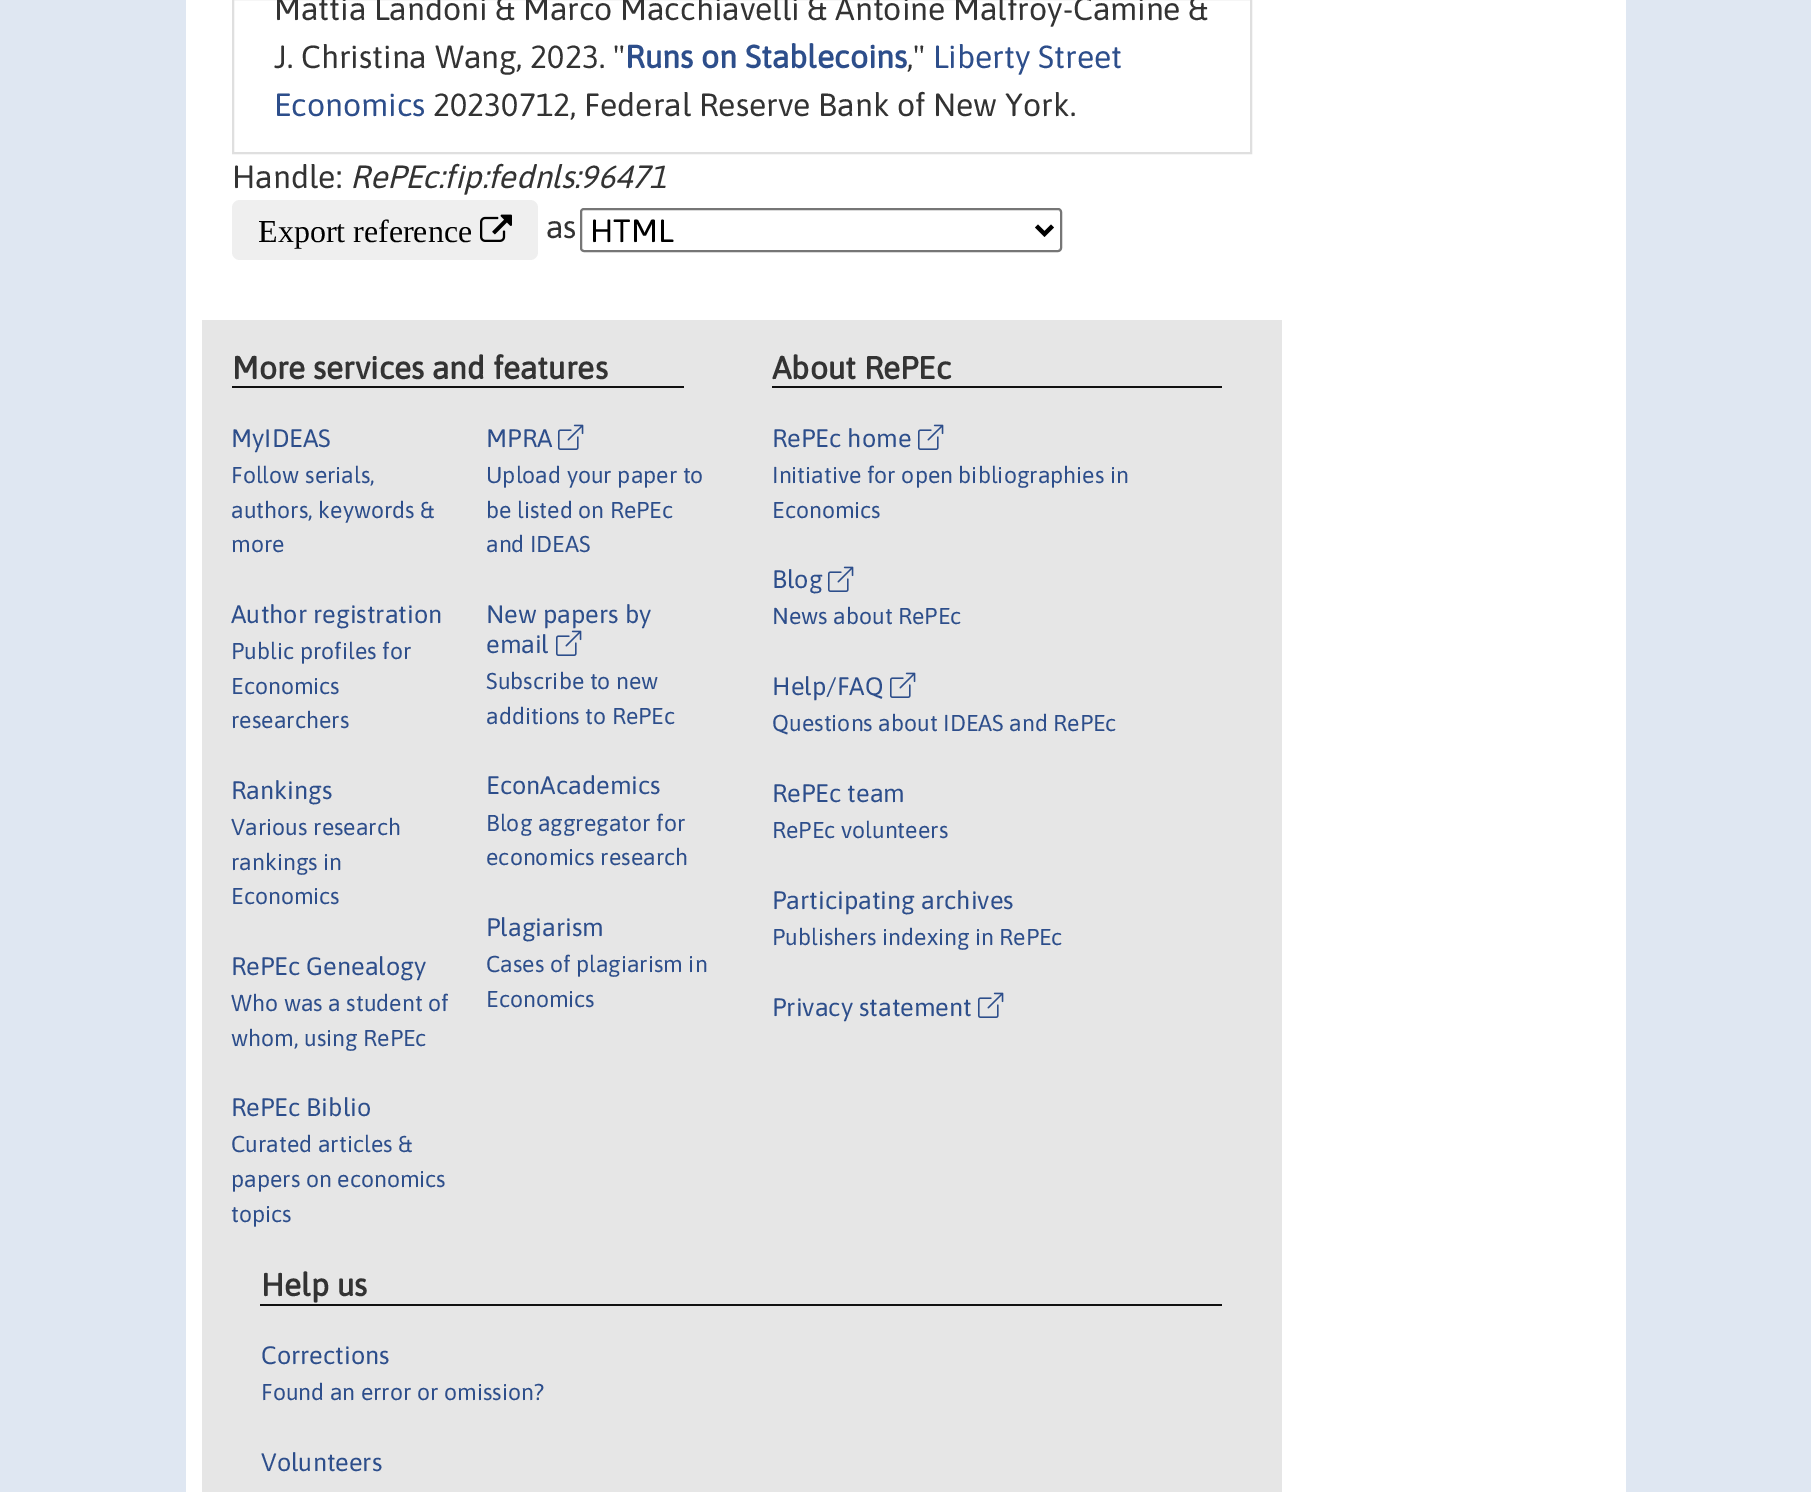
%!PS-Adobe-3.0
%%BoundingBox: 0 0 1811 1492
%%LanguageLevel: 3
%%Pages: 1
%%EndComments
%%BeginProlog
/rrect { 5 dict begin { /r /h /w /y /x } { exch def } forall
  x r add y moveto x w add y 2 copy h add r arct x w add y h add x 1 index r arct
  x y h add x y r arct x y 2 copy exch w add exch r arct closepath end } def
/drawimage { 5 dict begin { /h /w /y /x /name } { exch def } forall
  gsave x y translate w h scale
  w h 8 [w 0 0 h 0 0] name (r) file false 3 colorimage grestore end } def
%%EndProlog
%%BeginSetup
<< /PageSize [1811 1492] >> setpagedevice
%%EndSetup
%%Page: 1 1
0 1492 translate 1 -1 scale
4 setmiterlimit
0.875 0.906 0.949 setrgbcolor
0 0 1811 1492 rectfill
1 setgray
186 0 1440 1492 rectfill
0.875 setgray
2 setlinewidth
233 -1 1018 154 rectstroke
0.937 setgray
232 200 306 60 8 rrect fill
(images/1.raw) 480 214 32 28 drawimage
0.463 setgray
581 209 480 42 3 rrect stroke
0 setgray
4 setlinewidth
newpath 1036.5 226 moveto 1044.5 234 lineto 1052.5 226 lineto stroke
0.902 setgray
202 320 1080 1172 rectfill
0.067 setgray
232 386 452 2 rectfill
(images/2.raw) 558 424 26 26 drawimage
(images/2.raw) 556 630 26 26 drawimage
772 386 450 2 rectfill
(images/2.raw) 918 424 26 26 drawimage
(images/2.raw) 828 566 26 26 drawimage
(images/2.raw) 890 672 26 26 drawimage
(images/2.raw) 978 992 26 26 drawimage
260 1304 962 2 rectfill
/Asap-Regular [32 0 0 -32 0 0] selectfont
0.2 setgray
274 20 moveto (Mattia Landoni & Marco Macchiavelli & Antoine Malfroy-Camine &) show
274 68 moveto (J. Christina Wang, 2023. ") show
/Asap-Bold [32 0 0 -32 0 0] selectfont
0.176 0.306 0.545 setrgbcolor
625 68 moveto (Runs on Stablecoins) show
/Asap-Regular [32 0 0 -32 0 0] selectfont
0.2 setgray
907 68 moveto (,") show
0.176 0.306 0.545 setrgbcolor
933 68 moveto (Liberty Street) show
274 116 moveto (Economics) show
0.2 setgray
433 116 moveto (20230712, Federal Reserve Bank of New York.) show
232 188 moveto (Handle:) show
/Asap-Italic [32 0 0 -32 0 0] selectfont
350 188 moveto (RePEc:fip:fednls:96471) show
/LiberationSerif-Regular [32 0 0 -32 0 0] selectfont
0 setgray
258 242 moveto (Export reference) show
/Asap-Regular [32 0 0 -32 0 0] selectfont
0.2 setgray
546 238 moveto (as) show
0 setgray
590 242 moveto (HTML) show
/Asap-Bold [31.75 0 0 -31.75 0 0] selectfont
0.2 setgray
232 379 moveto (More services and features) show
/Asap-Regular [25.25 0 0 -25.25 0 0] selectfont
0.176 0.306 0.545 setrgbcolor
231 447 moveto (MyIDEAS) show
/Asap-Regular [23 0 0 -23 0 0] selectfont
231 483 moveto (Follow serials,) show
231 518 moveto (authors, keywords &) show
231 552 moveto (more) show
/Asap-Regular [25.25 0 0 -25.25 0 0] selectfont
231 623 moveto (Author registration) show
/Asap-Regular [23 0 0 -23 0 0] selectfont
231 659 moveto (Public profiles for) show
231 694 moveto (Economics) show
231 728 moveto (researchers) show
/Asap-Regular [25.25 0 0 -25.25 0 0] selectfont
231 799 moveto (Rankings) show
/Asap-Regular [23 0 0 -23 0 0] selectfont
231 835 moveto (Various research) show
231 870 moveto (rankings in) show
231 904 moveto (Economics) show
/Asap-Regular [25.25 0 0 -25.25 0 0] selectfont
231 975 moveto (RePEc Genealogy) show
/Asap-Regular [23 0 0 -23 0 0] selectfont
231 1011 moveto (Who was a student of) show
231 1046 moveto (whom, using RePEc) show
/Asap-Regular [25.25 0 0 -25.25 0 0] selectfont
231 1116 moveto (RePEc Biblio) show
/Asap-Regular [23 0 0 -23 0 0] selectfont
231 1152 moveto (Curated articles &) show
231 1187 moveto (papers on economics) show
231 1222 moveto (topics) show
/Asap-Regular [25.25 0 0 -25.25 0 0] selectfont
486 447 moveto (MPRA) show
/Asap-Regular [23 0 0 -23 0 0] selectfont
486 483 moveto (Upload your paper to) show
486 518 moveto (be listed on RePEc) show
486 552 moveto (and IDEAS) show
/Asap-Regular [25.25 0 0 -25.25 0 0] selectfont
486 623 moveto (New papers by) show
486 653 moveto (email) show
/Asap-Regular [23 0 0 -23 0 0] selectfont
486 689 moveto (Subscribe to new) show
486 724 moveto (additions to RePEc) show
/Asap-Regular [25.25 0 0 -25.25 0 0] selectfont
486 794 moveto (EconAcademics) show
/Asap-Regular [23 0 0 -23 0 0] selectfont
486 831 moveto (Blog aggregator for) show
486 865 moveto (economics research) show
/Asap-Regular [25.25 0 0 -25.25 0 0] selectfont
486 936 moveto (Plagiarism) show
/Asap-Regular [23 0 0 -23 0 0] selectfont
486 972 moveto (Cases of plagiarism in) show
486 1007 moveto (Economics) show
/Asap-Bold [31.75 0 0 -31.75 0 0] selectfont
0.2 setgray
772 379 moveto (About RePEc) show
/Asap-Regular [25.25 0 0 -25.25 0 0] selectfont
0.176 0.306 0.545 setrgbcolor
772 447 moveto (RePEc home) show
/Asap-Regular [23 0 0 -23 0 0] selectfont
772 483 moveto (Initiative for open bibliographies in) show
772 518 moveto (Economics) show
/Asap-Regular [25.25 0 0 -25.25 0 0] selectfont
772 588 moveto (Blog) show
/Asap-Regular [23 0 0 -23 0 0] selectfont
772 624 moveto (News about RePEc) show
/Asap-Regular [25.25 0 0 -25.25 0 0] selectfont
772 695 moveto (Help/FAQ) show
/Asap-Regular [23 0 0 -23 0 0] selectfont
772 731 moveto (Questions about IDEAS and RePEc) show
/Asap-Regular [25.25 0 0 -25.25 0 0] selectfont
772 802 moveto (RePEc team) show
/Asap-Regular [23 0 0 -23 0 0] selectfont
772 838 moveto (RePEc volunteers) show
/Asap-Regular [25.25 0 0 -25.25 0 0] selectfont
772 909 moveto (Participating archives) show
/Asap-Regular [23 0 0 -23 0 0] selectfont
772 945 moveto (Publishers indexing in RePEc) show
/Asap-Regular [25.25 0 0 -25.25 0 0] selectfont
772 1016 moveto (Privacy statement) show
/Asap-Bold [31.75 0 0 -31.75 0 0] selectfont
0.2 setgray
261 1296 moveto (Help us) show
/Asap-Regular [25.25 0 0 -25.25 0 0] selectfont
0.176 0.306 0.545 setrgbcolor
261 1364 moveto (Corrections) show
/Asap-Regular [23 0 0 -23 0 0] selectfont
261 1400 moveto (Found an error or omission?) show
/Asap-Regular [25.25 0 0 -25.25 0 0] selectfont
261 1471 moveto (Volunteers) show
showpage
%%EOF
